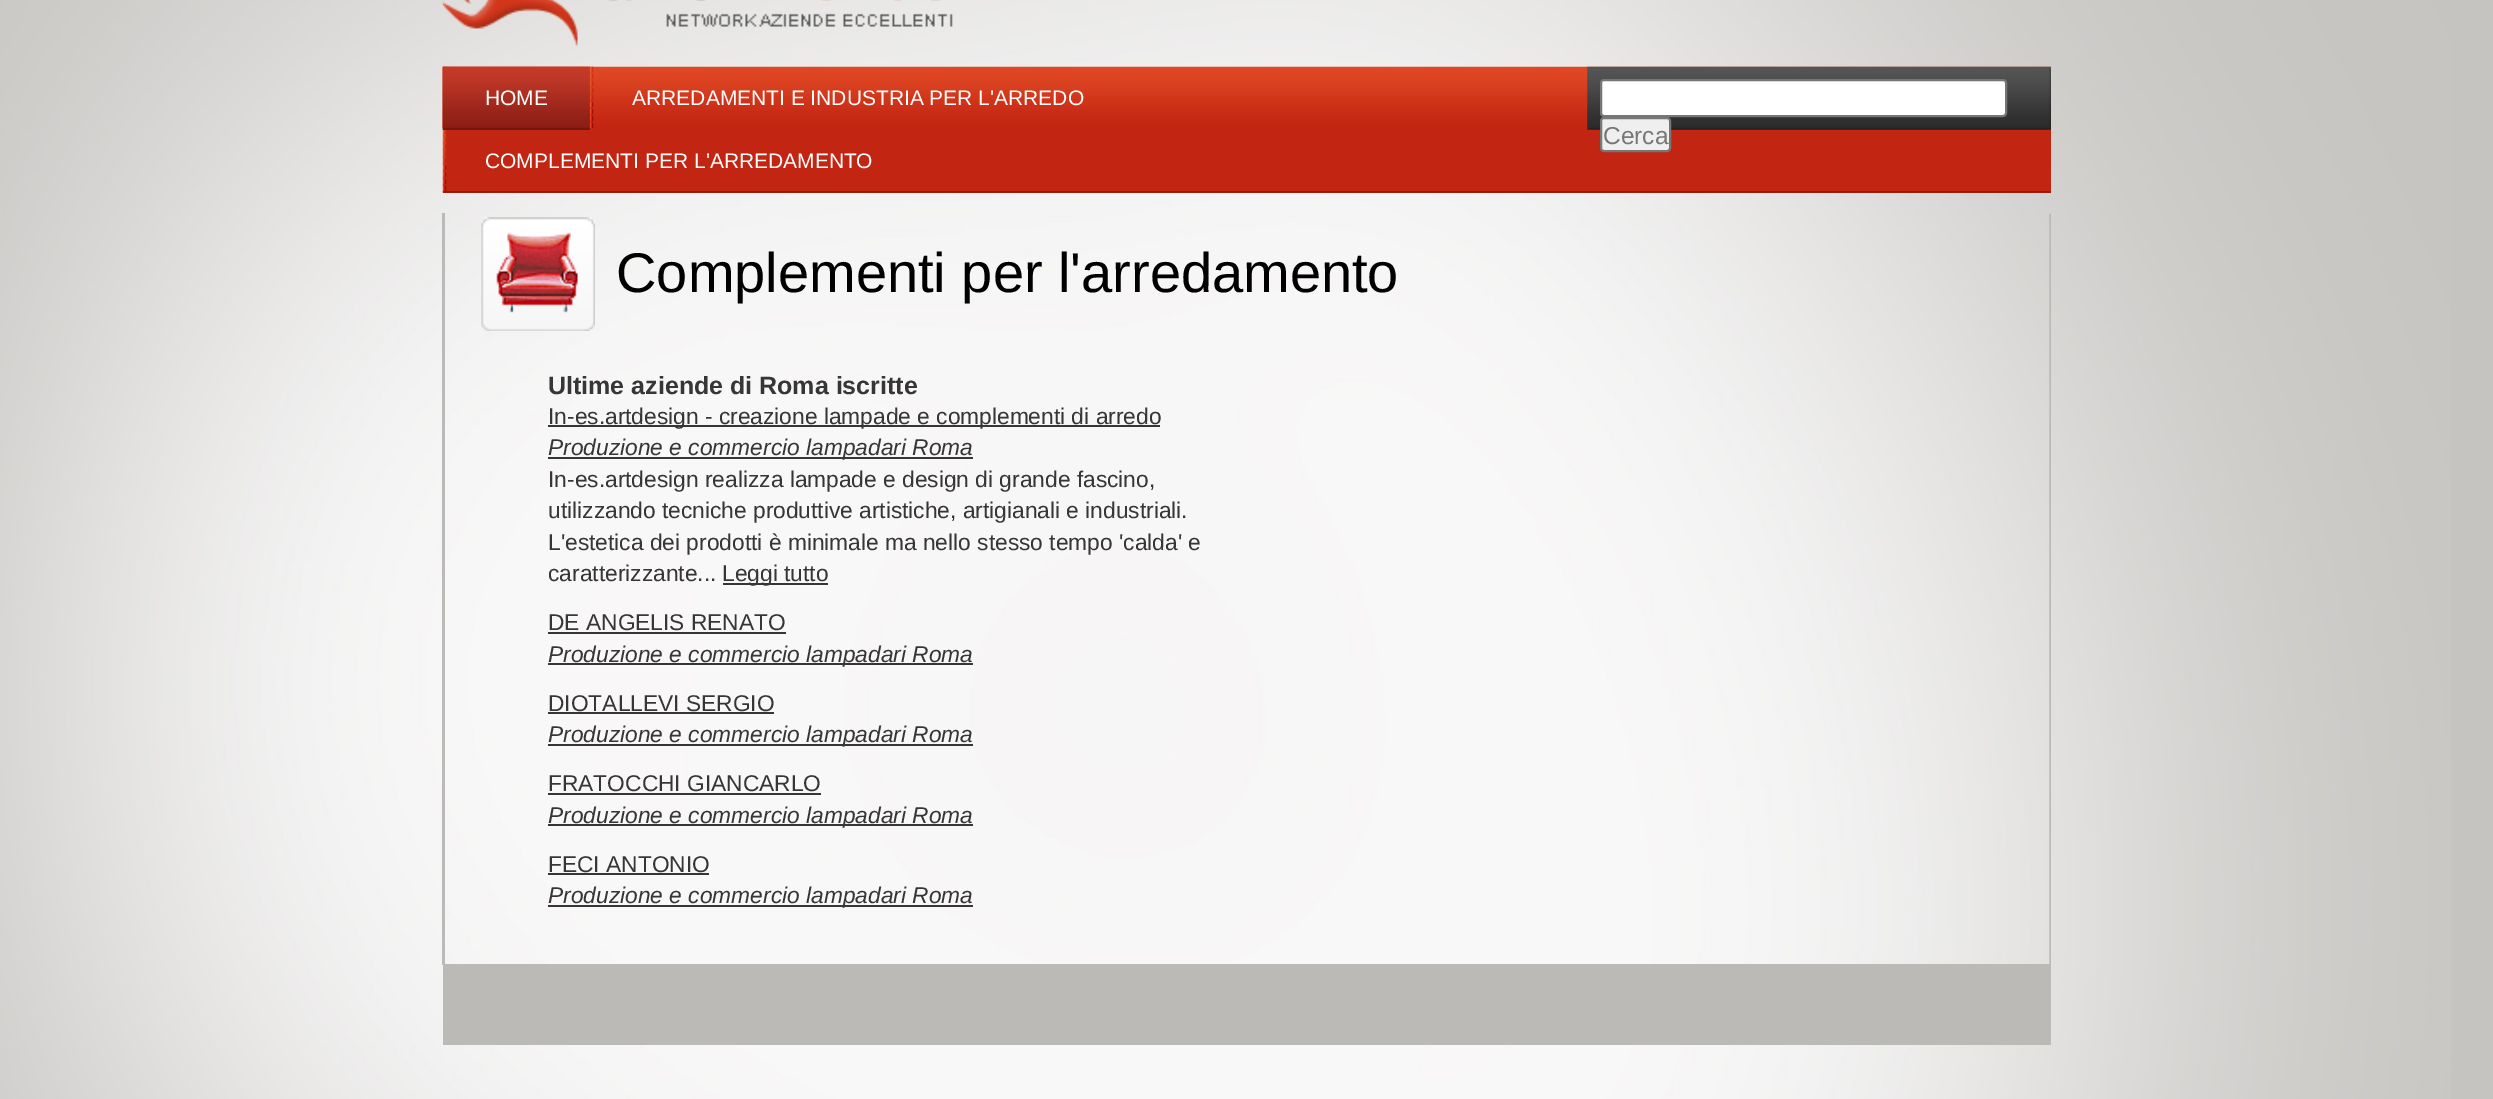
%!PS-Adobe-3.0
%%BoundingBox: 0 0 2493 1099
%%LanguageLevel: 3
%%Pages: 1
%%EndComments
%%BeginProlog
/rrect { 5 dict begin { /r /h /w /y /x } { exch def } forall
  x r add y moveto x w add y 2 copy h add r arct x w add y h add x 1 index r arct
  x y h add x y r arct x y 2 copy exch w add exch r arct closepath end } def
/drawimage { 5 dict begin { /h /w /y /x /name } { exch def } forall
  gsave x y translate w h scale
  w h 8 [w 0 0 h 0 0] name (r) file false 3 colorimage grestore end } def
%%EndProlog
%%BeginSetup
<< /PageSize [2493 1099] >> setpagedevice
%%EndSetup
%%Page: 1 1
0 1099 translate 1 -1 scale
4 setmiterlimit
0.776 0.769 0.757 setrgbcolor
0 0 2493 1099 rectfill
(images/1.raw) 0 0 2451 1099 drawimage
(images/2.raw) 442 0 511 46 drawimage
0.765 0.145 0.075 setrgbcolor
443 128 1608 65 rectfill
(images/3.raw) 442 66 1609 62 drawimage
(images/4.raw) 442 191 1609 2 drawimage
(images/5.raw) 442 66 5 62 drawimage
(images/6.raw) 442 66 148 64 drawimage
(images/8.raw) 589 66 5 62 drawimage
(images/9.raw) 442 129 5 62 drawimage
(images/7.raw) 442 66 148 64 drawimage
(images/10.raw) 1587 66 464 64 drawimage
1 setgray
1601 80 405 36 3 rrect gsave fill grestore
0.463 setgray
2 setlinewidth
stroke
0.937 setgray
1601 118 69 33 3 rrect gsave fill grestore
0.463 setgray
stroke
0.733 0.729 0.725 setrgbcolor
442 213 3 752 rectfill
(images/11.raw) 2049 213 2 751 drawimage
(images/12.raw) 481 217 114 114 drawimage
0.212 setgray
548 425 612 2 rectfill
548 457 425 2 rectfill
723 583 105 2 rectfill
548 632 238 2 rectfill
548 663 425 2 rectfill
548 712 226 2 rectfill
548 744 425 2 rectfill
548 793 273 2 rectfill
548 824 425 2 rectfill
548 873 161 2 rectfill
548 905 425 2 rectfill
0.737 0.729 0.714 setrgbcolor
443 964 1608 81 rectfill
/LiberationSans-Regular [21 0 0 -21 0 0] selectfont
1 setgray
485 105 moveto (HOME) show
632 105 moveto (ARREDAMENTI E INDUSTRIA PER L'ARREDO) show
485 168 moveto (COMPLEMENTI PER L'ARREDAMENTO) show
/LiberationSans-Regular [24.5 0 0 -24.5 0 0] selectfont
0.467 setgray
1603 144 moveto (Cerca) show
/LiberationSans-Regular [56 0 0 -56 0 0] selectfont
0 setgray
616 292 moveto (Complementi per l'arredamento) show
/LiberationSans-Bold [25 0 0 -25 0 0] selectfont
0.212 setgray
548 394 moveto (Ultime aziende di Roma iscritte) show
/LiberationSans-Regular [22.75 0 0 -22.75 0 0] selectfont
548 424 moveto (In-es.artdesign - creazione lampade e complementi di arredo) show
/LiberationSans-Italic [22.75 0 0 -22.75 0 0] selectfont
548 455 moveto (Produzione e commercio lampadari Roma) show
/LiberationSans-Regular [22.75 0 0 -22.75 0 0] selectfont
548 487 moveto (In-es.artdesign realizza lampade e design di grande fascino,) show
548 518 moveto (utilizzando tecniche produttive artistiche, artigianali e industriali.) show
548 550 moveto (L'estetica dei prodotti è minimale ma nello stesso tempo 'calda' e) show
548 581 moveto (caratterizzante...) show
722 581 moveto (Leggi tutto) show
548 630 moveto (DE ANGELIS RENATO) show
/LiberationSans-Italic [22.75 0 0 -22.75 0 0] selectfont
548 662 moveto (Produzione e commercio lampadari Roma) show
/LiberationSans-Regular [22.75 0 0 -22.75 0 0] selectfont
548 711 moveto (DIOTALLEVI SERGIO) show
/LiberationSans-Italic [22.75 0 0 -22.75 0 0] selectfont
548 742 moveto (Produzione e commercio lampadari Roma) show
/LiberationSans-Regular [22.75 0 0 -22.75 0 0] selectfont
548 791 moveto (FRATOCCHI GIANCARLO) show
/LiberationSans-Italic [22.75 0 0 -22.75 0 0] selectfont
548 823 moveto (Produzione e commercio lampadari Roma) show
/LiberationSans-Regular [22.75 0 0 -22.75 0 0] selectfont
548 872 moveto (FECI ANTONIO) show
/LiberationSans-Italic [22.75 0 0 -22.75 0 0] selectfont
548 903 moveto (Produzione e commercio lampadari Roma) show
showpage
%%EOF
